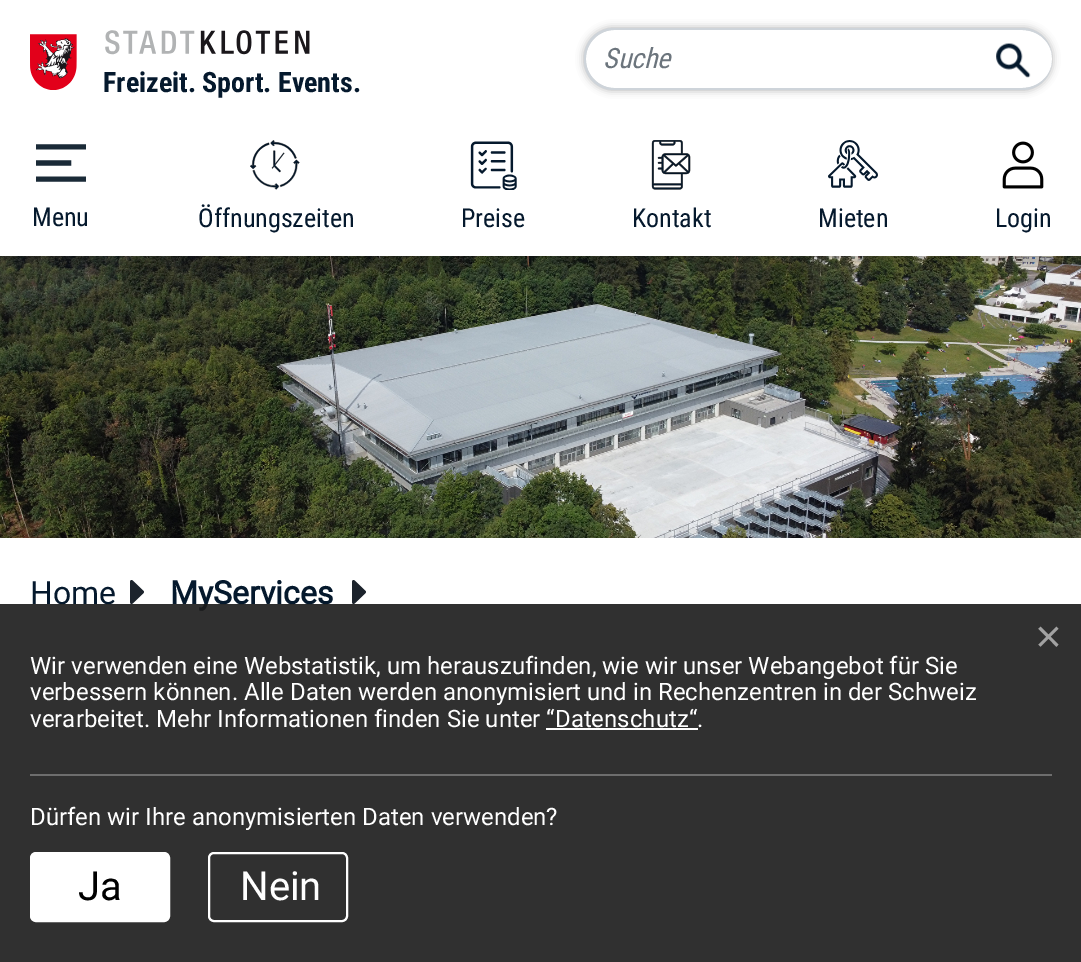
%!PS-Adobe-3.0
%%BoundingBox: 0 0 1081 962
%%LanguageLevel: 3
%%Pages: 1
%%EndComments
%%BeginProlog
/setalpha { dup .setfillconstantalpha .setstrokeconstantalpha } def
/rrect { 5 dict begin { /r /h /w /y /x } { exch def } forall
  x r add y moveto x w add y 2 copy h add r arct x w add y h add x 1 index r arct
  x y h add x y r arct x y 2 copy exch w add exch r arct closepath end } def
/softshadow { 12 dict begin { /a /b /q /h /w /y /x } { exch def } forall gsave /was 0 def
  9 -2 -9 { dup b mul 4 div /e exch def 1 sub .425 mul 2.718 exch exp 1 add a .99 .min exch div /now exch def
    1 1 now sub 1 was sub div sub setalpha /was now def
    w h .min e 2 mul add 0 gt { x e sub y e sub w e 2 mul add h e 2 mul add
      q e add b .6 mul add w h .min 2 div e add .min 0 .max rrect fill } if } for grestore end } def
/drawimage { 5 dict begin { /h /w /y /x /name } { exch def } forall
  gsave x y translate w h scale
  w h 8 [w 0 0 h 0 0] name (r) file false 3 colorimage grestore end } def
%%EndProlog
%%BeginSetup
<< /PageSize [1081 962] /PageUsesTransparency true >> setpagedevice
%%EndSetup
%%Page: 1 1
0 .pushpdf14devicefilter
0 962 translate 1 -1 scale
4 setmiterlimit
1 setgray
0 0 1081 962 rectfill
(images/9.raw) 0 256 1081 282 drawimage
gsave
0 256 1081 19 rectclip
0 setgray
-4 -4 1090 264 0 10 0.32 softshadow
grestore
0 setgray
584 28 468 62 30 4 0.32 softshadow
1 setgray
newpath 614 30 moveto 1022 30 lineto 1039 30 1052 43 1052 58 curveto 1052 60 lineto 1052 75 1039 88 1022 88 curveto 614 88 lineto 599 88 586 75 586 60 curveto 586 58 lineto 586 43 599 30 614 30 curveto closepath fill
0.808 0.831 0.855 setrgbcolor
newpath 614 28 moveto 1022 28 lineto 1039 28 1052 41 1052 58 curveto 1052 60 lineto 1052 77 1039 90 1022 90 curveto 614 90 lineto 597 90 584 77 584 60 curveto 584 58 lineto 584 41 597 28 614 28 curveto closepath 614 30 moveto 1022 30 lineto 1039 30 1052 43 1052 58 curveto 1052 60 lineto 1052 75 1039 88 1022 88 curveto 614 88 lineto 599 88 586 75 586 60 curveto 586 58 lineto 586 43 599 30 614 30 curveto closepath eofill
(images/1.raw) 996 43 35 35 drawimage
(images/2.raw) 36 144 50 38 drawimage
(images/3.raw) 250 140 50 50 drawimage
(images/4.raw) 470 141 47 49 drawimage
(images/5.raw) 651 140 40 50 drawimage
(images/6.raw) 828 140 50 48 drawimage
(images/7.raw) 1002 141 42 48 drawimage
(images/8.raw) 30 30 280 60 drawimage
(images/10.raw) 130 580 14 24 drawimage
(images/10.raw) 352 580 14 24 drawimage
/RobotoCondensed-Italic [28 0 0 -28 0 0] selectfont
0.424 0.459 0.49 setrgbcolor
603 68 moveto (Suche) show
/RobotoCondensed-Regular [26 0 0 -26 0 0] selectfont
0.02 0.098 0.176 setrgbcolor
32 226 moveto (Menu) show
198 227 moveto (Öffnungszeiten) show
461 227 moveto (Preise) show
632 227 moveto (Kontakt) show
818 227 moveto (Mieten) show
995 227 moveto (Login) show
/RobotoCondensed-Bold [28 0 0 -28 0 0] selectfont
103 92 moveto (Freizeit. Sport. Events.) show
/Roboto-Regular [32 0 0 -32 0 0] selectfont
30 604 moveto (Home) show
/Roboto-Bold [32 0 0 -32 0 0] selectfont
170 604 moveto (MyServices) show
0.9 setalpha
0.098 setgray
0 604 1081 358 rectfill
/LiberationSans-Regular [46 0 0 -46 0 0] selectfont
1 setalpha
0.635 setgray
1035 652 moveto (×) show
0.427 setgray
30 774 1022 2 rectfill
/Roboto-Regular [24 0 0 -24 0 0] selectfont
1 setgray
30 674 moveto (Wir verwenden eine Webstatistik, um herauszufinden, wie wir unser Webangebot für Sie) show
30 700 moveto (verbessern können. Alle Daten werden anonymisiert und in Rechenzentren in der Schweiz) show
30 727 moveto (verarbeitet. Mehr Informationen finden Sie unter “Datenschutz“.) show
546 728 152 2 rectfill
30 825 moveto (Dürfen wir Ihre anonymisierten Daten verwenden?) show
31 853 138 68 5 rrect gsave fill grestore
2 setlinewidth
stroke
/Roboto-Regular [40 0 0 -40 0 0] selectfont
0 setgray
78 900 moveto (Ja) show
1 setgray
209 853 138 68 5 rrect stroke
240 900 moveto (Nein) show
.poppdf14devicefilter showpage
%%EOF
